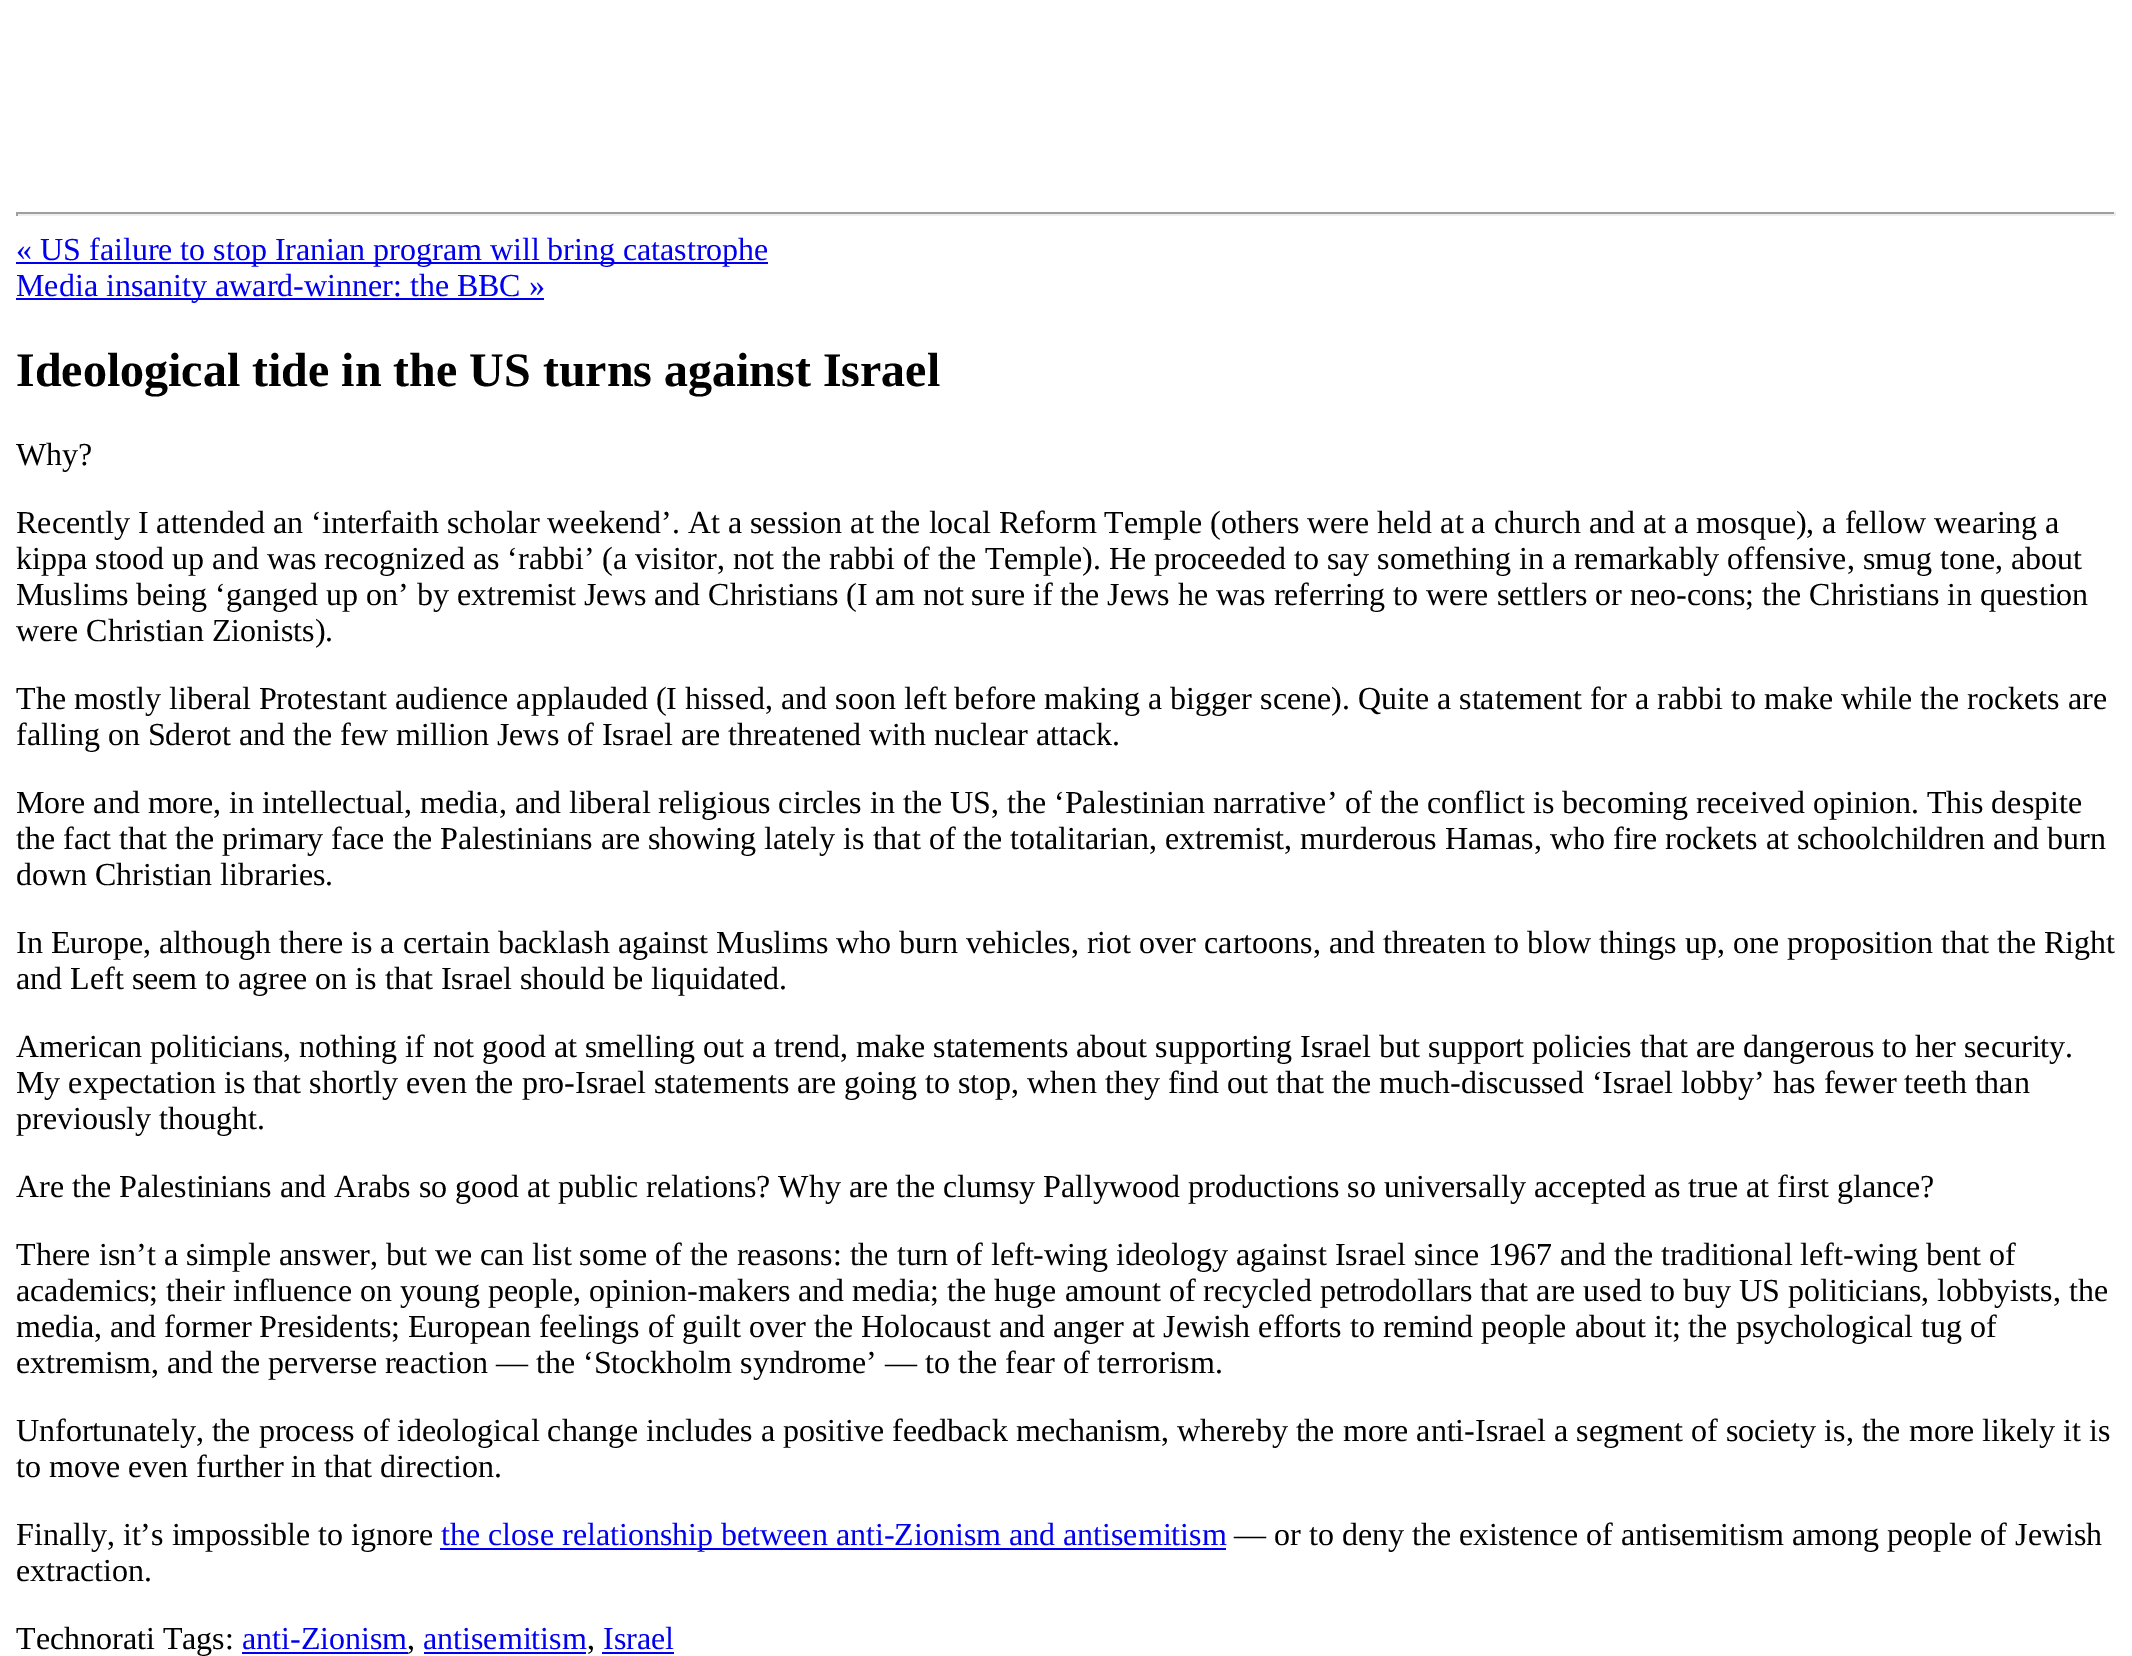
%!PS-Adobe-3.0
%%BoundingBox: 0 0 2132 1656
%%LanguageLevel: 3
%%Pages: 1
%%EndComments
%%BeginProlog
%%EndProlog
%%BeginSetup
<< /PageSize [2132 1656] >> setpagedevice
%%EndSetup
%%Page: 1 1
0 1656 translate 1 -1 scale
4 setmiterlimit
1 setgray
0 0 2132 1656 rectfill
0.624 setgray
16 212 2100 2 rectfill
0.933 setgray
2114 212 2 4 rectfill
16 214 2100 2 rectfill
0.624 setgray
16 212 2 4 rectfill
0 0 0.933 setrgbcolor
16 262 752 2 rectfill
16 298 528 2 rectfill
440 1548 786 2 rectfill
242 1652 166 2 rectfill
424 1652 162 2 rectfill
602 1652 72 2 rectfill
/LiberationSerif-Regular [32 0 0 -32 0 0] selectfont
16 260 moveto (« US failure to stop Iranian program will bring catastrophe) show
16 296 moveto (Media insanity award-winner: the BBC ») show
/LiberationSerif-Bold [48 0 0 -48 0 0] selectfont
0 setgray
16 386 moveto (Ideological tide in the US turns against Israel) show
/LiberationSerif-Regular [32 0 0 -32 0 0] selectfont
16 465 moveto (Why?) show
16 533 moveto (Recently I attended an ‘interfaith scholar weekend’. At a session at the local Reform Temple \(others were held at a church and at a mosque\), a fellow wearing a) show
16 569 moveto (kippa stood up and was recognized as ‘rabbi’ \(a visitor, not the rabbi of the Temple\). He proceeded to say something in a remarkably offensive, smug tone, about) show
16 605 moveto (Muslims being ‘ganged up on’ by extremist Jews and Christians \(I am not sure if the Jews he was referring to were settlers or neo-cons; the Christians in question) show
16 641 moveto (were Christian Zionists\).) show
16 709 moveto (The mostly liberal Protestant audience applauded \(I hissed, and soon left before making a bigger scene\). Quite a statement for a rabbi to make while the rockets are) show
16 745 moveto (falling on Sderot and the few million Jews of Israel are threatened with nuclear attack.) show
16 813 moveto (More and more, in intellectual, media, and liberal religious circles in the US, the ‘Palestinian narrative’ of the conflict is becoming received opinion. This despite) show
16 849 moveto (the fact that the primary face the Palestinians are showing lately is that of the totalitarian, extremist, murderous Hamas, who fire rockets at schoolchildren and burn) show
16 885 moveto (down Christian libraries.) show
16 953 moveto (In Europe, although there is a certain backlash against Muslims who burn vehicles, riot over cartoons, and threaten to blow things up, one proposition that the Right) show
16 989 moveto (and Left seem to agree on is that Israel should be liquidated.) show
16 1057 moveto (American politicians, nothing if not good at smelling out a trend, make statements about supporting Israel but support policies that are dangerous to her security.) show
16 1093 moveto (My expectation is that shortly even the pro-Israel statements are going to stop, when they find out that the much-discussed ‘Israel lobby’ has fewer teeth than) show
16 1129 moveto (previously thought.) show
16 1197 moveto (Are the Palestinians and Arabs so good at public relations? Why are the clumsy Pallywood productions so universally accepted as true at first glance?) show
16 1265 moveto (There isn’t a simple answer, but we can list some of the reasons: the turn of left-wing ideology against Israel since 1967 and the traditional left-wing bent of) show
16 1301 moveto (academics; their influence on young people, opinion-makers and media; the huge amount of recycled petrodollars that are used to buy US politicians, lobbyists, the) show
16 1337 moveto (media, and former Presidents; European feelings of guilt over the Holocaust and anger at Jewish efforts to remind people about it; the psychological tug of) show
16 1373 moveto (extremism, and the perverse reaction — the ‘Stockholm syndrome’ — to the fear of terrorism.) show
16 1441 moveto (Unfortunately, the process of ideological change includes a positive feedback mechanism, whereby the more anti-Israel a segment of society is, the more likely it is) show
16 1477 moveto (to move even further in that direction.) show
16 1545 moveto (Finally, it’s impossible to ignore) show
0 0 0.933 setrgbcolor
441 1545 moveto (the close relationship between anti-Zionism and antisemitism) show
0 setgray
1234 1545 moveto (— or to deny the existence of antisemitism among people of Jewish) show
16 1581 moveto (extraction.) show
16 1649 moveto (Technorati Tags:) show
0 0 0.933 setrgbcolor
242 1649 moveto (anti-Zionism) show
0 setgray
407 1649 moveto (,) show
0 0 0.933 setrgbcolor
423 1649 moveto (antisemitism) show
0 setgray
587 1649 moveto (,) show
0 0 0.933 setrgbcolor
603 1649 moveto (Israel) show
showpage
%%EOF
